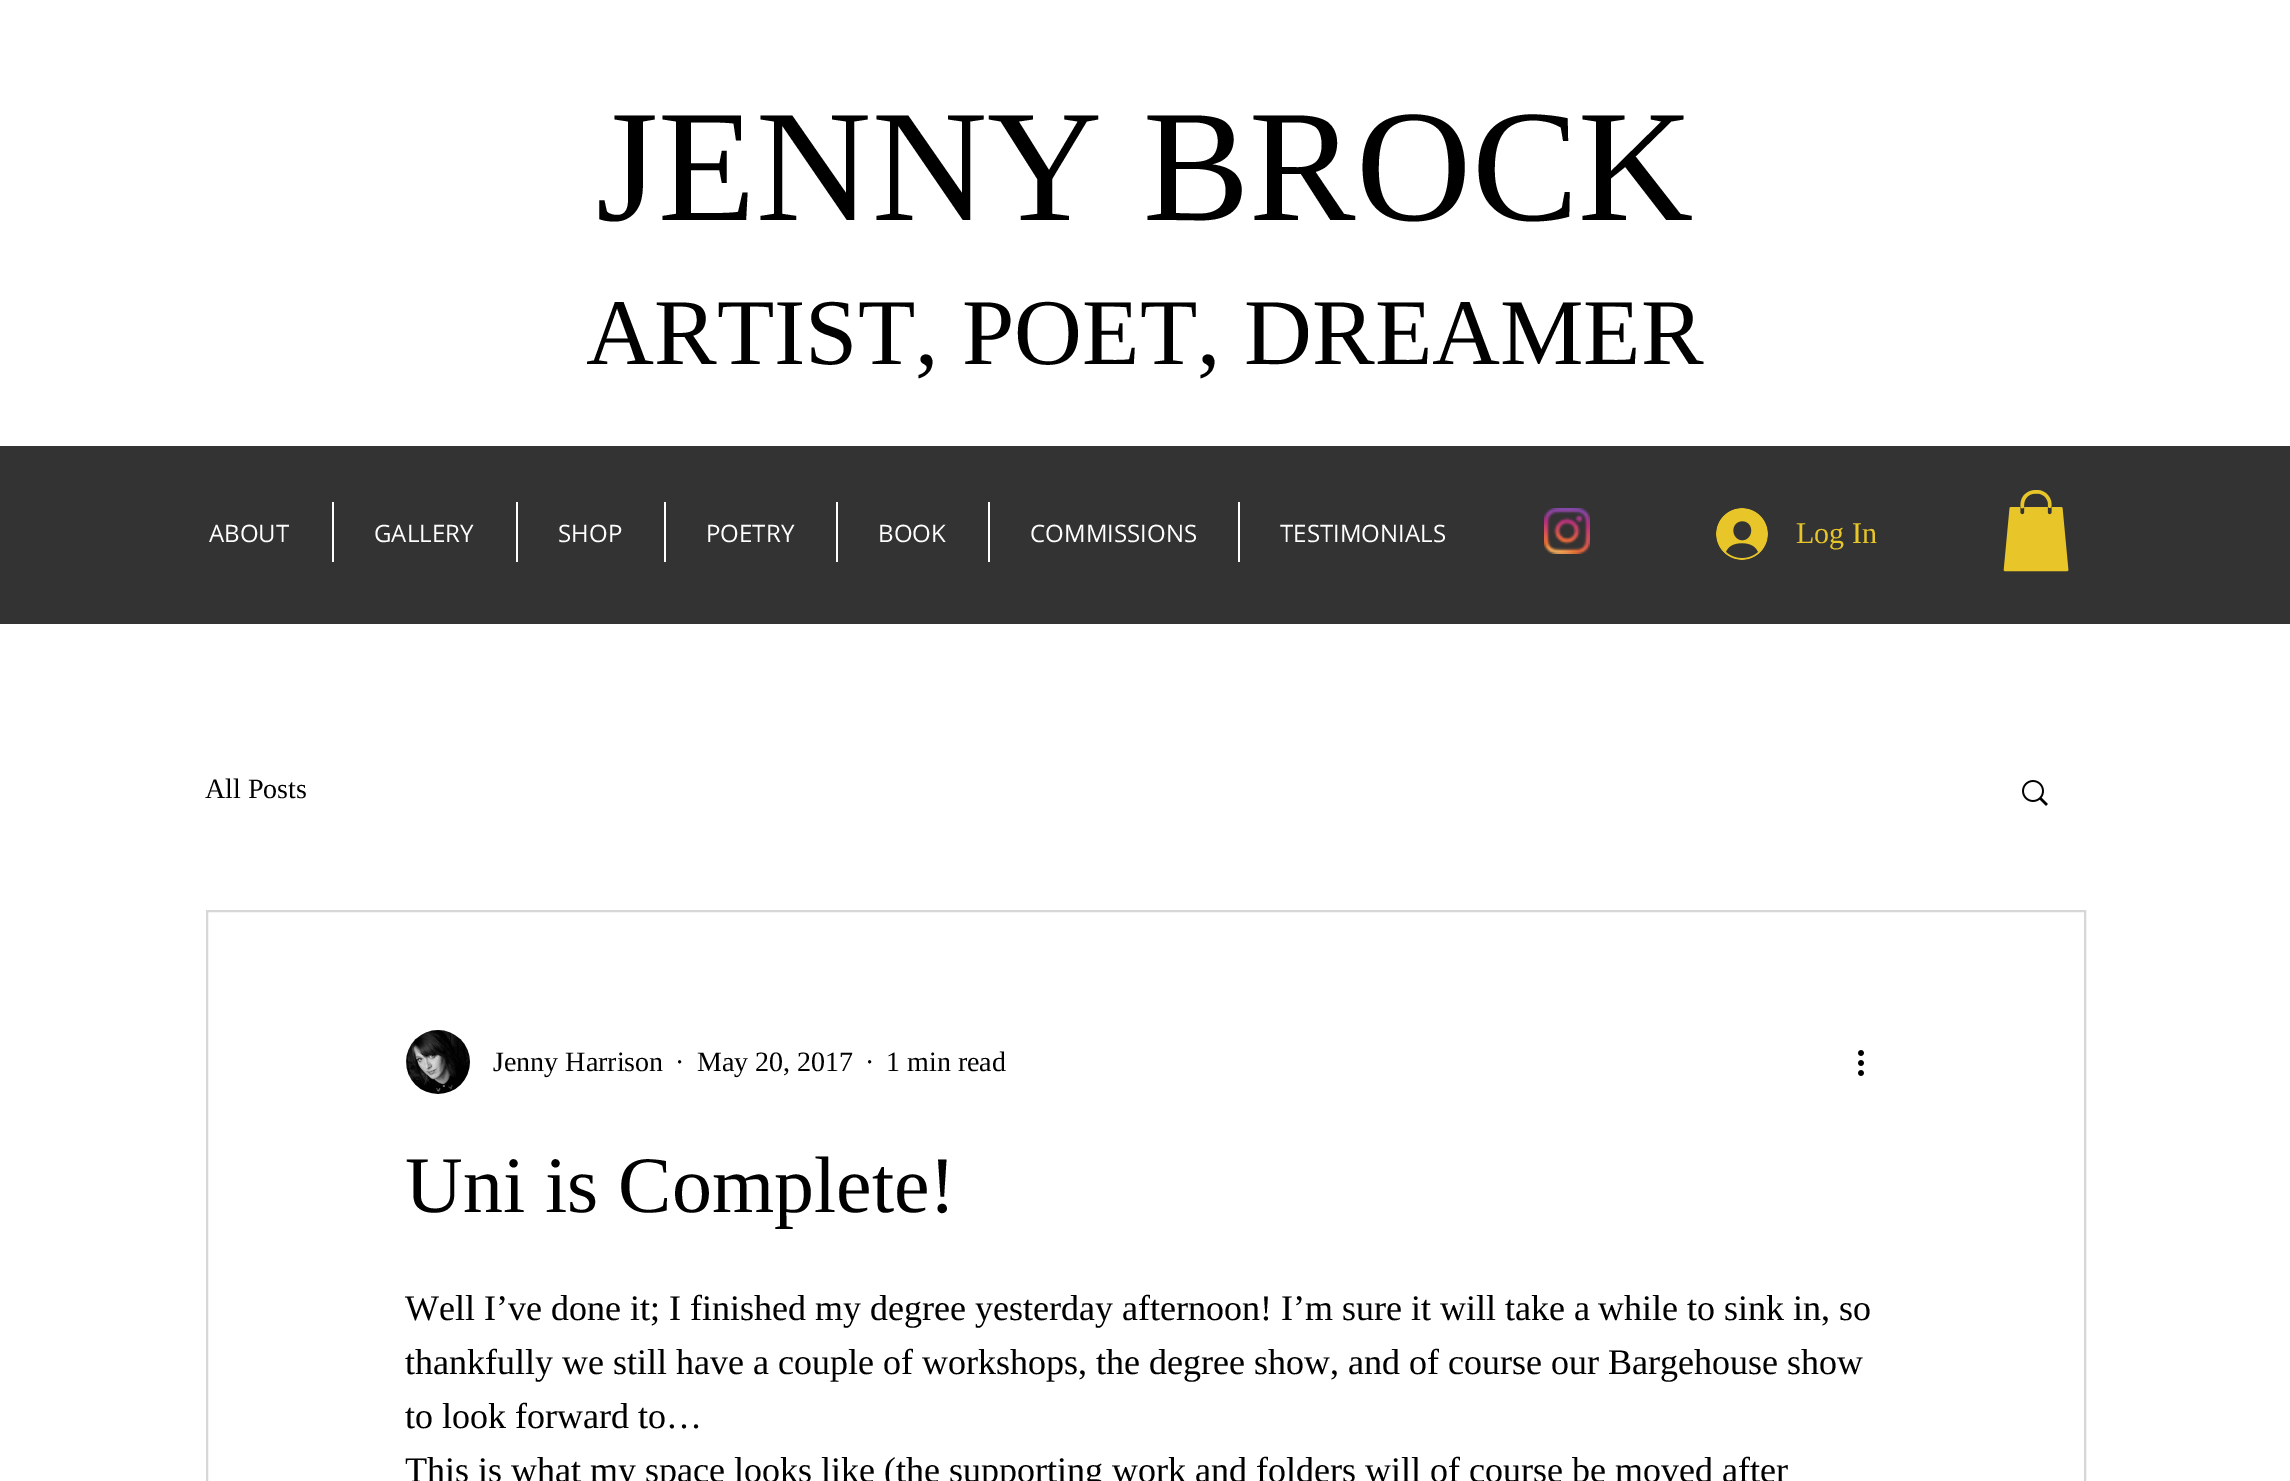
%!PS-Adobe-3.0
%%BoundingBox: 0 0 2290 1481
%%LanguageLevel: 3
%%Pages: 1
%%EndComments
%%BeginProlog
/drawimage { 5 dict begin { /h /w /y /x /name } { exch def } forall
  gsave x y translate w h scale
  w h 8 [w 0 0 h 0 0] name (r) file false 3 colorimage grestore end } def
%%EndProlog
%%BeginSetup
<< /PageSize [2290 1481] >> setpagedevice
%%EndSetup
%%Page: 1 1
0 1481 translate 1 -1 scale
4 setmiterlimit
1 setgray
0 0 2290 1481 rectfill
0.2 setgray
0 446 2290 178 rectfill
1 setgray
332 502 2 60 rectfill
516 502 2 60 rectfill
664 502 2 60 rectfill
836 502 2 60 rectfill
988 502 2 60 rectfill
1238 502 2 60 rectfill
(images/1.raw) 1544 508 46 46 drawimage
(images/2.raw) 1716 508 52 52 drawimage
(images/3.raw) 2003 490 66 82 drawimage
(images/4.raw) 2022 780 26 26 drawimage
0.843 setgray
2 setlinewidth
207 911 1878 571 rectstroke
(images/5.raw) 406 1030 64 64 drawimage
(images/6.raw) 1858 1050 6 26 drawimage
/LiberationSerif-Regular [160 0 0 -160 0 0] selectfont
0 setgray
596 220 moveto (JENNY BROCK) show
/LiberationSerif-Regular [94 0 0 -94 0 0] selectfont
586 364 moveto (ARTIST, POET, DREAMER) show
/OpenSans-Regular [24 0 0 -24 0 0] selectfont
1 setgray
209 542 moveto (ABOUT) show
374 542 moveto (GALLERY) show
558 542 moveto (SHOP) show
706 542 moveto (POETRY) show
878 542 moveto (BOOK) show
1030 542 moveto (COMMISSIONS) show
1280 542 moveto (TESTIMONIALS) show
/LiberationSerif-Regular [30 0 0 -30 0 0] selectfont
0.91 0.773 0.161 setrgbcolor
1796 543 moveto (Log In) show
/LiberationSerif-Regular [28 0 0 -28 0 0] selectfont
0 setgray
205 798 moveto (All Posts) show
493 1071 moveto (Jenny Harrison) show
675 1071 moveto (·) show
697 1071 moveto (May 20, 2017) show
865 1071 moveto (·) show
886 1071 moveto (1 min read) show
/LiberationSerif-Regular [80 0 0 -80 0 0] selectfont
405 1212 moveto (Uni is Complete!) show
/LiberationSerif-Regular [36 0 0 -36 0 0] selectfont
405 1320 moveto (Well I’ve done it; I finished my degree yesterday afternoon! I’m sure it will take a while to sink in, so) show
405 1374 moveto (thankfully we still have a couple of workshops, the degree show, and of course our Bargehouse show) show
405 1428 moveto (to look forward to…) show
405 1482 moveto (This is what my space looks like \(the supporting work and folders will of course be moved after) show
showpage
%%EOF
